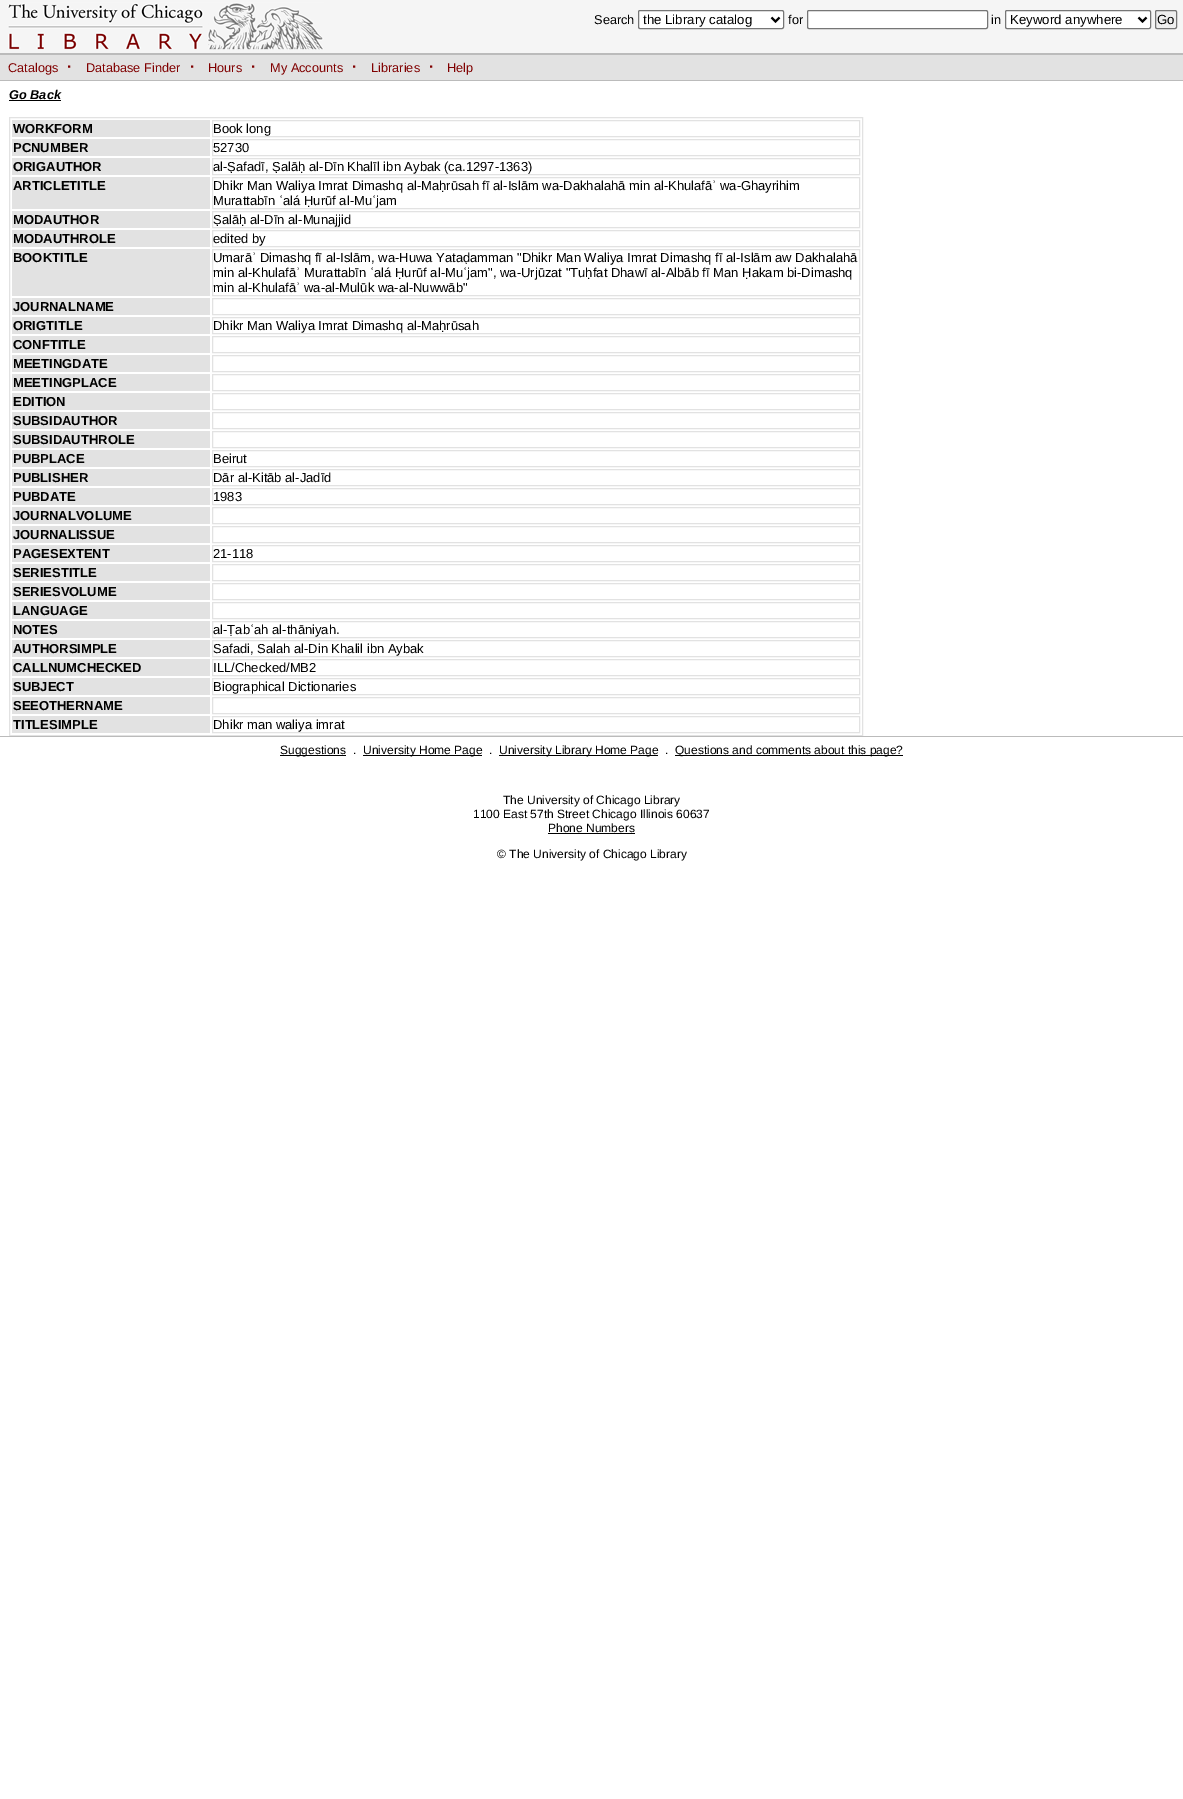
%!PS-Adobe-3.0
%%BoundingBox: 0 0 1183 1799
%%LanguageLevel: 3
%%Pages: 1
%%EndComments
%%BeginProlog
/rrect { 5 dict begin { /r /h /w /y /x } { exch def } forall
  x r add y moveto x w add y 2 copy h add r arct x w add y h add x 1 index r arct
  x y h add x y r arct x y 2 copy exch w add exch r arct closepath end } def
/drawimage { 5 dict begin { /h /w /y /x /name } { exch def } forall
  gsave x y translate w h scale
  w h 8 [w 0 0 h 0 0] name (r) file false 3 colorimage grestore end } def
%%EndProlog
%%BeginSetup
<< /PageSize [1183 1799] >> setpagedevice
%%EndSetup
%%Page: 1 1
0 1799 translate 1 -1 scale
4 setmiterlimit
1 setgray
0 0 1183 1799 rectfill
0.961 setgray
0 0 1183 53 rectfill
0.733 setgray
0 53 1183 2 rectfill
(images/1.raw) 7 2 317 48 drawimage
1 setgray
638.5 10.5 145 18 1.5 rrect gsave fill grestore
0.463 setgray
stroke
0 setgray
2 setlinewidth
newpath 771.5 17.5 moveto 775.5 21.5 lineto 779.5 17.5 lineto stroke
1 setgray
807.5 10.5 180 18 1.5 rrect gsave fill grestore
0.463 setgray
1 setlinewidth
stroke
1 setgray
1005.5 10.5 145 18 1.5 rrect gsave fill grestore
0.463 setgray
stroke
0 setgray
2 setlinewidth
newpath 1138.5 17.5 moveto 1142.5 21.5 lineto 1146.5 17.5 lineto stroke
0.937 setgray
1155.5 10.5 21 18 1.5 rrect gsave fill grestore
0.463 setgray
1 setlinewidth
stroke
0.886 setgray
0 55 1183 25 rectfill
0.733 setgray
0 80 1183 1 rectfill
0 setgray
9 100 52 1 rectfill
0.886 setgray
9.5 117.5 853 618 rectstroke
12 120 198 17 rectfill
212.5 120.5 647 16 rectstroke
12 139 198 17 rectfill
212.5 139.5 647 16 rectstroke
12 158 198 17 rectfill
212.5 158.5 647 16 rectstroke
12 177 198 32 rectfill
212.5 177.5 647 31 rectstroke
12 211 198 17 rectfill
212.5 211.5 647 16 rectstroke
12 230 198 17 rectfill
212.5 230.5 647 16 rectstroke
12 249 198 47 rectfill
212.5 249.5 647 46 rectstroke
12 298 198 17 rectfill
212.5 298.5 647 16 rectstroke
12 317 198 17 rectfill
212.5 317.5 647 16 rectstroke
12 336 198 17 rectfill
212.5 336.5 647 16 rectstroke
12 355 198 17 rectfill
212.5 355.5 647 16 rectstroke
12 374 198 17 rectfill
212.5 374.5 647 16 rectstroke
12 393 198 17 rectfill
212.5 393.5 647 16 rectstroke
12 412 198 17 rectfill
212.5 412.5 647 16 rectstroke
12 431 198 17 rectfill
212.5 431.5 647 16 rectstroke
12 450 198 17 rectfill
212.5 450.5 647 16 rectstroke
12 469 198 17 rectfill
212.5 469.5 647 16 rectstroke
12 488 198 17 rectfill
212.5 488.5 647 16 rectstroke
12 507 198 17 rectfill
212.5 507.5 647 16 rectstroke
12 526 198 17 rectfill
212.5 526.5 647 16 rectstroke
12 545 198 17 rectfill
212.5 545.5 647 16 rectstroke
12 564 198 17 rectfill
212.5 564.5 647 16 rectstroke
12 583 198 17 rectfill
212.5 583.5 647 16 rectstroke
12 602 198 17 rectfill
212.5 602.5 647 16 rectstroke
12 621 198 17 rectfill
212.5 621.5 647 16 rectstroke
12 640 198 17 rectfill
212.5 640.5 647 16 rectstroke
12 659 198 17 rectfill
212.5 659.5 647 16 rectstroke
12 678 198 17 rectfill
212.5 678.5 647 16 rectstroke
12 697 198 17 rectfill
212.5 697.5 647 16 rectstroke
12 716 198 17 rectfill
212.5 716.5 647 16 rectstroke
0.733 setgray
0 736 1183 1 rectfill
0 setgray
280 755 66 1 rectfill
363 755 119 1 rectfill
499 755 159 1 rectfill
675 755 228 1 rectfill
548 833 87 1 rectfill
/LiberationSans-Regular [12.75 0 0 -12.75 0 0] selectfont
594 24 moveto (Search) show
/LiberationSans-Regular [13.25 0 0 -13.25 0 0] selectfont
643 24 moveto (the Library catalog) show
/LiberationSans-Regular [12.75 0 0 -12.75 0 0] selectfont
788 24 moveto (for) show
991 24 moveto (in) show
/LiberationSans-Regular [13.25 0 0 -13.25 0 0] selectfont
1010 24 moveto (Keyword anywhere) show
1157 24 moveto (Go) show
/LiberationSans-Regular [12.75 0 0 -12.75 0 0] selectfont
0.502 0 0 setrgbcolor
8 72 moveto (Catalogs) show
/LiberationSans-Bold [16 0 0 -16 0 0] selectfont
67 72 moveto (·) show
/LiberationSans-Regular [12.75 0 0 -12.75 0 0] selectfont
86 72 moveto (Database Finder) show
/LiberationSans-Bold [16 0 0 -16 0 0] selectfont
190 72 moveto (·) show
/LiberationSans-Regular [12.75 0 0 -12.75 0 0] selectfont
208 72 moveto (Hours) show
/LiberationSans-Bold [16 0 0 -16 0 0] selectfont
251 72 moveto (·) show
/LiberationSans-Regular [12.75 0 0 -12.75 0 0] selectfont
270 72 moveto (My Accounts) show
/LiberationSans-Bold [16 0 0 -16 0 0] selectfont
352 72 moveto (·) show
/LiberationSans-Regular [12.75 0 0 -12.75 0 0] selectfont
371 72 moveto (Libraries) show
/LiberationSans-Bold [16 0 0 -16 0 0] selectfont
429 72 moveto (·) show
/LiberationSans-Regular [12.75 0 0 -12.75 0 0] selectfont
447 72 moveto (Help) show
/LiberationSans-BoldItalic [12.75 0 0 -12.75 0 0] selectfont
0 setgray
9 99 moveto (Go Back) show
/LiberationSans-Bold [13 0 0 -13 0 0] selectfont
13 133 moveto (WORKFORM) show
/LiberationSans-Regular [13 0 0 -13 0 0] selectfont
213 133 moveto (Book long) show
/LiberationSans-Bold [13 0 0 -13 0 0] selectfont
13 152 moveto (PCNUMBER) show
/LiberationSans-Regular [13 0 0 -13 0 0] selectfont
213 152 moveto (52730) show
/LiberationSans-Bold [13 0 0 -13 0 0] selectfont
13 171 moveto (ORIGAUTHOR) show
/LiberationSans-Regular [13 0 0 -13 0 0] selectfont
213 171 moveto (al-Ṣafadī, Ṣalāḥ al-Dīn Khalīl ibn Aybak \(ca.1297-1363\)) show
/LiberationSans-Bold [13 0 0 -13 0 0] selectfont
13 190 moveto (ARTICLETITLE) show
/LiberationSans-Regular [13 0 0 -13 0 0] selectfont
213 190 moveto (Dhikr Man Waliya Imrat Dimashq al-Maḥrūsah fī al-Islām wa-Dakhalahā min al-Khulafāʾ wa-Ghayrihim) show
213 205 moveto (Murattabīn ʿalá Ḥurūf al-Muʿjam) show
/LiberationSans-Bold [13 0 0 -13 0 0] selectfont
13 224 moveto (MODAUTHOR) show
/LiberationSans-Regular [13 0 0 -13 0 0] selectfont
213 224 moveto (Ṣalāḥ al-Dīn al-Munajjid) show
/LiberationSans-Bold [13 0 0 -13 0 0] selectfont
13 243 moveto (MODAUTHROLE) show
/LiberationSans-Regular [13 0 0 -13 0 0] selectfont
213 243 moveto (edited by) show
/LiberationSans-Bold [13 0 0 -13 0 0] selectfont
13 262 moveto (BOOKTITLE) show
/LiberationSans-Regular [13 0 0 -13 0 0] selectfont
213 262 moveto (Umarāʾ Dimashq fī al-Islām, wa-Huwa Yataḍamman "Dhikr Man Waliya Imrat Dimashq fī al-Islām aw Dakhalahā) show
213 277 moveto (min al-Khulafāʾ Murattabīn ʿalá Ḥurūf al-Muʿjam", wa-Urjūzat "Tuḥfat Dhawī al-Albāb fī Man Ḥakam bi-Dimashq) show
213 292 moveto (min al-Khulafāʾ wa-al-Mulūk wa-al-Nuwwāb") show
/LiberationSans-Bold [13 0 0 -13 0 0] selectfont
13 311 moveto (JOURNALNAME) show
13 330 moveto (ORIGTITLE) show
/LiberationSans-Regular [13 0 0 -13 0 0] selectfont
213 330 moveto (Dhikr Man Waliya Imrat Dimashq al-Maḥrūsah) show
/LiberationSans-Bold [13 0 0 -13 0 0] selectfont
13 349 moveto (CONFTITLE) show
13 368 moveto (MEETINGDATE) show
13 387 moveto (MEETINGPLACE) show
13 406 moveto (EDITION) show
13 425 moveto (SUBSIDAUTHOR) show
13 444 moveto (SUBSIDAUTHROLE) show
13 463 moveto (PUBPLACE) show
/LiberationSans-Regular [13 0 0 -13 0 0] selectfont
213 463 moveto (Beirut) show
/LiberationSans-Bold [13 0 0 -13 0 0] selectfont
13 482 moveto (PUBLISHER) show
/LiberationSans-Regular [13 0 0 -13 0 0] selectfont
213 482 moveto (Dār al-Kitāb al-Jadīd) show
/LiberationSans-Bold [13 0 0 -13 0 0] selectfont
13 501 moveto (PUBDATE) show
/LiberationSans-Regular [13 0 0 -13 0 0] selectfont
213 501 moveto (1983) show
/LiberationSans-Bold [13 0 0 -13 0 0] selectfont
13 520 moveto (JOURNALVOLUME) show
13 539 moveto (JOURNALISSUE) show
13 558 moveto (PAGESEXTENT) show
/LiberationSans-Regular [13 0 0 -13 0 0] selectfont
213 558 moveto (21-118) show
/LiberationSans-Bold [13 0 0 -13 0 0] selectfont
13 577 moveto (SERIESTITLE) show
13 596 moveto (SERIESVOLUME) show
13 615 moveto (LANGUAGE) show
13 634 moveto (NOTES) show
/LiberationSans-Regular [13 0 0 -13 0 0] selectfont
213 634 moveto (al-Ṭabʿah al-thāniyah.) show
/LiberationSans-Bold [13 0 0 -13 0 0] selectfont
13 653 moveto (AUTHORSIMPLE) show
/LiberationSans-Regular [13 0 0 -13 0 0] selectfont
213 653 moveto (Safadi, Salah al-Din Khalil ibn Aybak) show
/LiberationSans-Bold [13 0 0 -13 0 0] selectfont
13 672 moveto (CALLNUMCHECKED) show
/LiberationSans-Regular [13 0 0 -13 0 0] selectfont
213 672 moveto (ILL/Checked/MB2) show
/LiberationSans-Bold [13 0 0 -13 0 0] selectfont
13 691 moveto (SUBJECT) show
/LiberationSans-Regular [13 0 0 -13 0 0] selectfont
213 691 moveto (Biographical Dictionaries) show
/LiberationSans-Bold [13 0 0 -13 0 0] selectfont
13 710 moveto (SEEOTHERNAME) show
13 729 moveto (TITLESIMPLE) show
/LiberationSans-Regular [13 0 0 -13 0 0] selectfont
213 729 moveto (Dhikr man waliya imrat) show
/LiberationSans-Regular [12 0 0 -12 0 0] selectfont
280 754 moveto (Suggestions) show
353 754 moveto (.) show
363 754 moveto (University Home Page) show
489 754 moveto (.) show
499 754 moveto (University Library Home Page) show
665 754 moveto (.) show
675 754 moveto (Questions and comments about this page?) show
503 804 moveto (The University of Chicago Library) show
473 818 moveto (1100 East 57th Street Chicago Illinois 60637) show
548 832 moveto (Phone Numbers) show
497 858 moveto (© The University of Chicago Library) show
showpage
%%EOF
